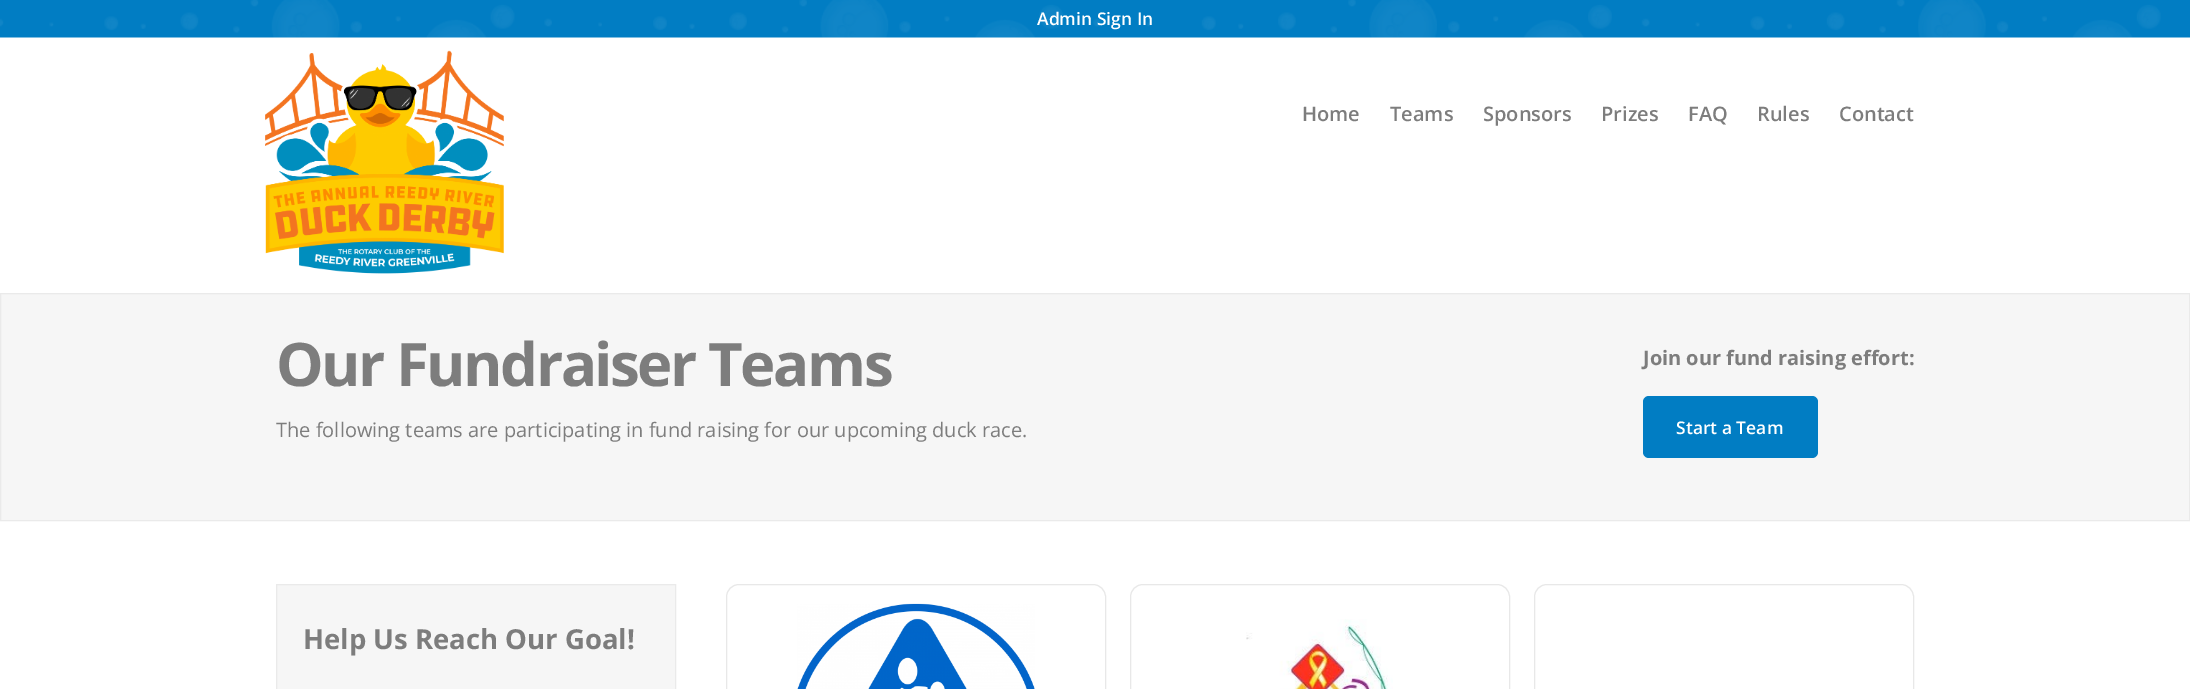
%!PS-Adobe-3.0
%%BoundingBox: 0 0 2190 689
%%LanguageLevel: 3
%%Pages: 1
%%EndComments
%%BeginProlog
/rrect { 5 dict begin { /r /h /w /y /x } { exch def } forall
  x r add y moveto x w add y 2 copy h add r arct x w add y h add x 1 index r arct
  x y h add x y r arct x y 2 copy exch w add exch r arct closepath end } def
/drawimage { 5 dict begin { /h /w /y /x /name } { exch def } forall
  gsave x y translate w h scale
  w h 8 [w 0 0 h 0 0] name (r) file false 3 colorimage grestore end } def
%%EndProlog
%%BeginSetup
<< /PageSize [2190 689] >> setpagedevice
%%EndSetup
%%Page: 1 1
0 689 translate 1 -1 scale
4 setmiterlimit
1 setgray
0 0 2190 689 rectfill
(images/1.raw) 0 0 2190 38 drawimage
(images/2.raw) 265 50 239 224 drawimage
0.965 setgray
newpath 0.5 293.5 moveto 2189.5 293.5 lineto 2189.5 520.5 lineto 0.5 520.5 lineto closepath gsave fill grestore
0.918 setgray
stroke
0.004 0.49 0.765 setrgbcolor
1643 396 175 62 6 rrect fill
0.965 setgray
newpath 276.5 584.5 moveto 675.5 584.5 lineto 675.5 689.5 lineto 276.5 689.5 lineto closepath gsave fill grestore
0.918 setgray
stroke
0.91 setgray
726.5 584.5 379 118 12.5 rrect stroke
(images/3.raw) 797 603 238 86 drawimage
1130.5 584.5 379 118 12.5 rrect stroke
(images/4.raw) 1246 619 147 70 drawimage
1534.5 584.5 379 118 12.5 rrect stroke
/OpenSans-SemiBold [17.5 0 0 -17.5 0 0] selectfont
1 setgray
1037 25 moveto (Admin Sign In) show
/OpenSans-SemiBold [20 0 0 -20 0 0] selectfont
0.49 setgray
1302 121 moveto (Home) show
1390 121 moveto (Teams) show
1483 121 moveto (Sponsors) show
1601 121 moveto (Prizes) show
1688 121 moveto (FAQ) show
1757 121 moveto (Rules) show
1839 121 moveto (Contact) show
/OpenSans-Bold [60 0 0 -60 0 0] selectfont
276 386 moveto -2.5 0 (Our Fundraiser Teams) ashow
/OpenSans-Regular [20 0 0 -20 0 0] selectfont
276 437 moveto (The following teams are participating in fund raising for our upcoming duck race.) show
/OpenSans-Bold [20 0 0 -20 0 0] selectfont
1643 365 moveto (Join our fund raising effort:) show
/OpenSans-SemiBold [17.5 0 0 -17.5 0 0] selectfont
1 setgray
1676 434 moveto (Start a Team) show
/OpenSans-Bold [27.5 0 0 -27.5 0 0] selectfont
0.49 setgray
303 649 moveto (Help Us Reach Our Goal!) show
showpage
%%EOF
